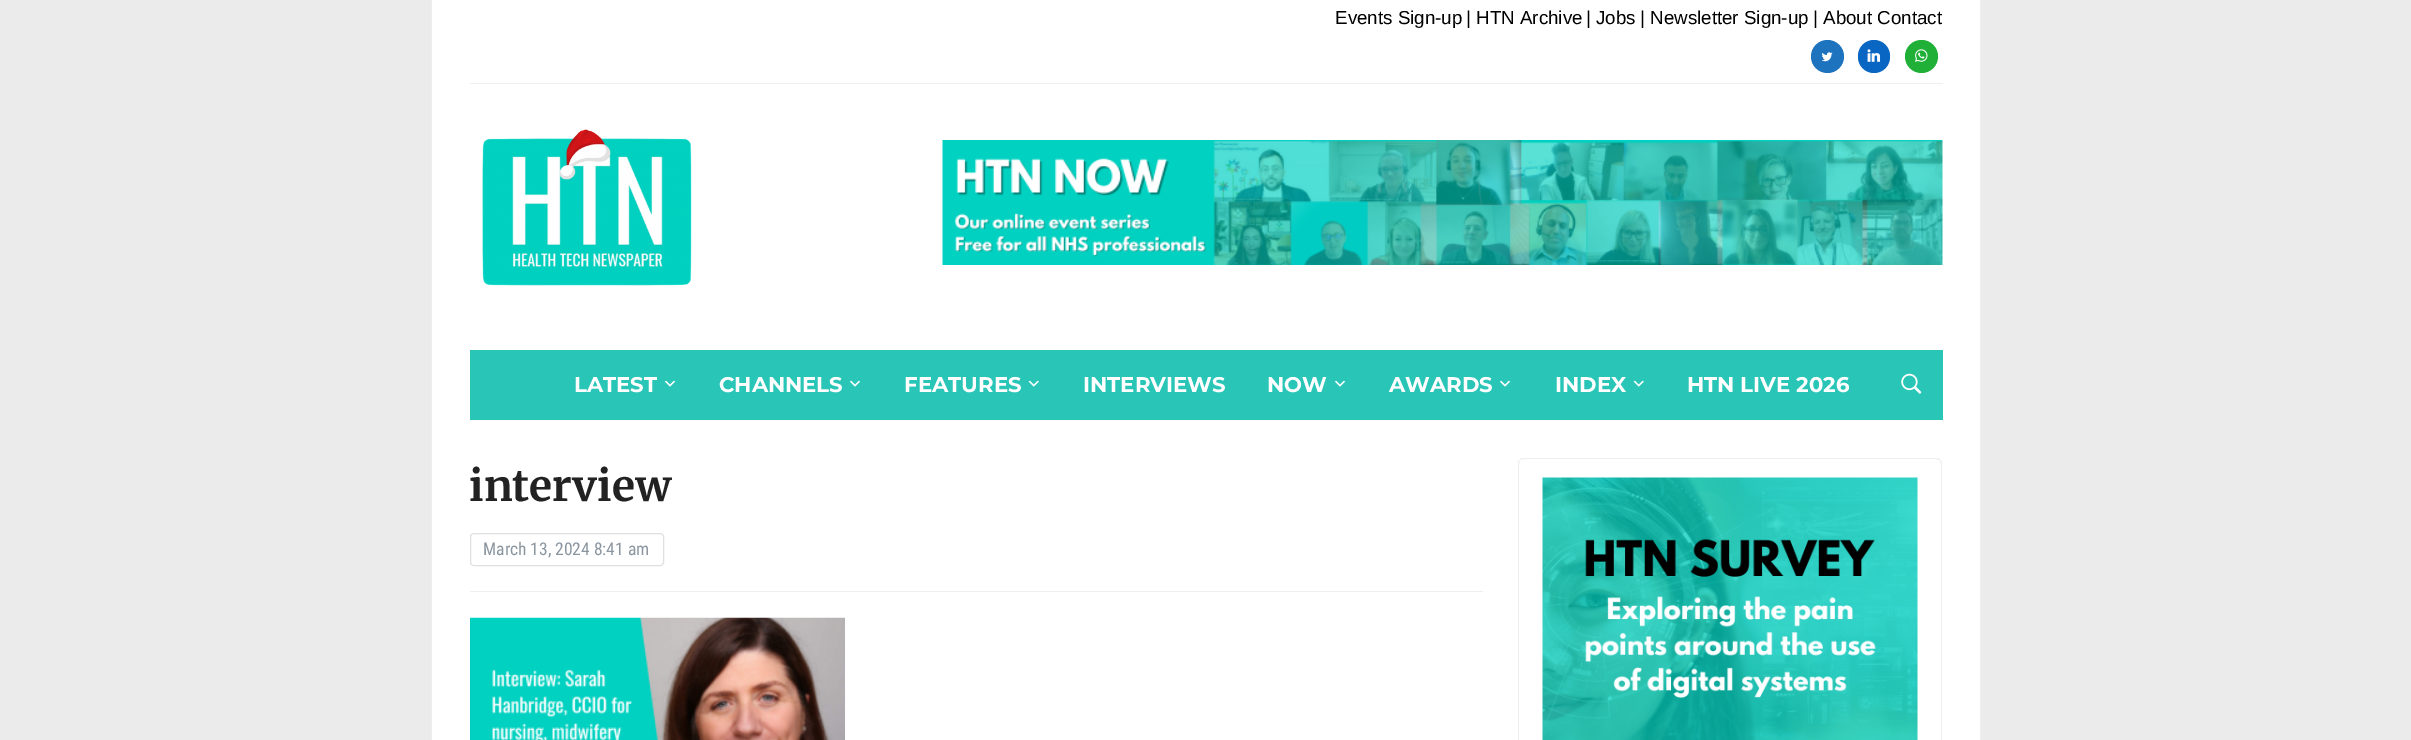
%!PS-Adobe-3.0
%%BoundingBox: 0 0 2411 740
%%LanguageLevel: 3
%%Pages: 1
%%EndComments
%%BeginProlog
/rrect { 5 dict begin { /r /h /w /y /x } { exch def } forall
  x r add y moveto x w add y 2 copy h add r arct x w add y h add x 1 index r arct
  x y h add x y r arct x y 2 copy exch w add exch r arct closepath end } def
/drawimage { 5 dict begin { /h /w /y /x /name } { exch def } forall
  gsave x y translate w h scale
  w h 8 [w 0 0 h 0 0] name (r) file false 3 colorimage grestore end } def
%%EndProlog
%%BeginSetup
<< /PageSize [2411 740] >> setpagedevice
%%EndSetup
%%Page: 1 1
0 740 translate 1 -1 scale
4 setmiterlimit
0.922 setgray
0 0 2411 740 rectfill
1 setgray
432 0 1548 740 rectfill
0.933 setgray
1980 0 1 740 rectfill
431 0 1 740 rectfill
470 83 1473 1 rectfill
0.118 0.451 0.745 setrgbcolor
newpath 1827.5 56.5 16.5 0 360 arc closepath fill
(images/1.raw) 1821 52 12 10 drawimage
0.035 0.4 0.761 setrgbcolor
1858 40 32 33 16 rrect fill
(images/2.raw) 1867 49 14 13 drawimage
0.125 0.69 0.22 setrgbcolor
newpath 1921.5 56.5 16.5 0 360 arc closepath fill
(images/3.raw) 1915 49 13 13 drawimage
(images/4.raw) 482 129 210 157 drawimage
(images/5.raw) 942 140 1001 125 drawimage
0.161 0.776 0.718 setrgbcolor
470 350 1473 70 rectfill
(images/6.raw) 664 380 12 7 drawimage
(images/6.raw) 849 380 12 7 drawimage
(images/7.raw) 1028 380 11 7 drawimage
(images/6.raw) 1334 380 12 7 drawimage
(images/6.raw) 1499 380 12 7 drawimage
(images/7.raw) 1633 380 11 7 drawimage
(images/8.raw) 1901 373 21 21 drawimage
0.933 setgray
470 591 1013 1 rectfill
0.875 0.878 0.878 setrgbcolor
470.5 533.5 193 32 3.5 rrect stroke
(images/9.raw) 470 617 375 123 drawimage
0.933 setgray
newpath 1524 458 moveto 1522 458 1520 458 1520 460 curveto 1521 460 1522 459 1524 459 curveto 1936 459 lineto 1938 459 1939 460 1940 460 curveto 1940 458 1938 458 1936 458 curveto closepath fill
newpath 1941 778 moveto 1942 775 lineto 1942 464 lineto 1942 462 1942 460 1940 460 curveto 1941 461 1941 463 1941 464 curveto 1941 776 lineto closepath fill
newpath 1520 460 moveto 1518 460 1518 462 1518 464 curveto 1518 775 lineto 1519 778 lineto 1519 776 lineto 1519 464 lineto 1519 463 1519 461 1520 460 curveto closepath fill
(images/10.raw) 1542 477 376 263 drawimage
/LiberationSans-Regular [18.75 0 0 -18.75 0 0] selectfont
0 setgray
1335 24 moveto (Events Sign-up) show
1466 24 moveto (| HTN Archive) show
1586 24 moveto (| Jobs) show
1640 24 moveto (| Newsletter Sign-up) show
1813 24 moveto (| About Contact) show
/Montserrat-Bold [21.25 0 0 -21.25 0 0] selectfont
1 setgray
574 392 moveto (LATEST) show
719 392 moveto (CHANNELS) show
904 392 moveto (FEATURES) show
1083 392 moveto (INTERVIEWS) show
1267 392 moveto (NOW) show
1389 392 moveto (AWARDS) show
1555 392 moveto (INDEX) show
1687 392 moveto (HTN LIVE 2026) show
/Merriweather-Bold [42.5 0 0 -42.5 0 0] selectfont
0.133 setgray
469 501 moveto (interview) show
/RobotoCondensed-Regular [17.5 0 0 -17.5 0 0] selectfont
0.545 0.588 0.627 setrgbcolor
483 555 moveto (March 13, 2024 8:41 am) show
showpage
%%EOF
